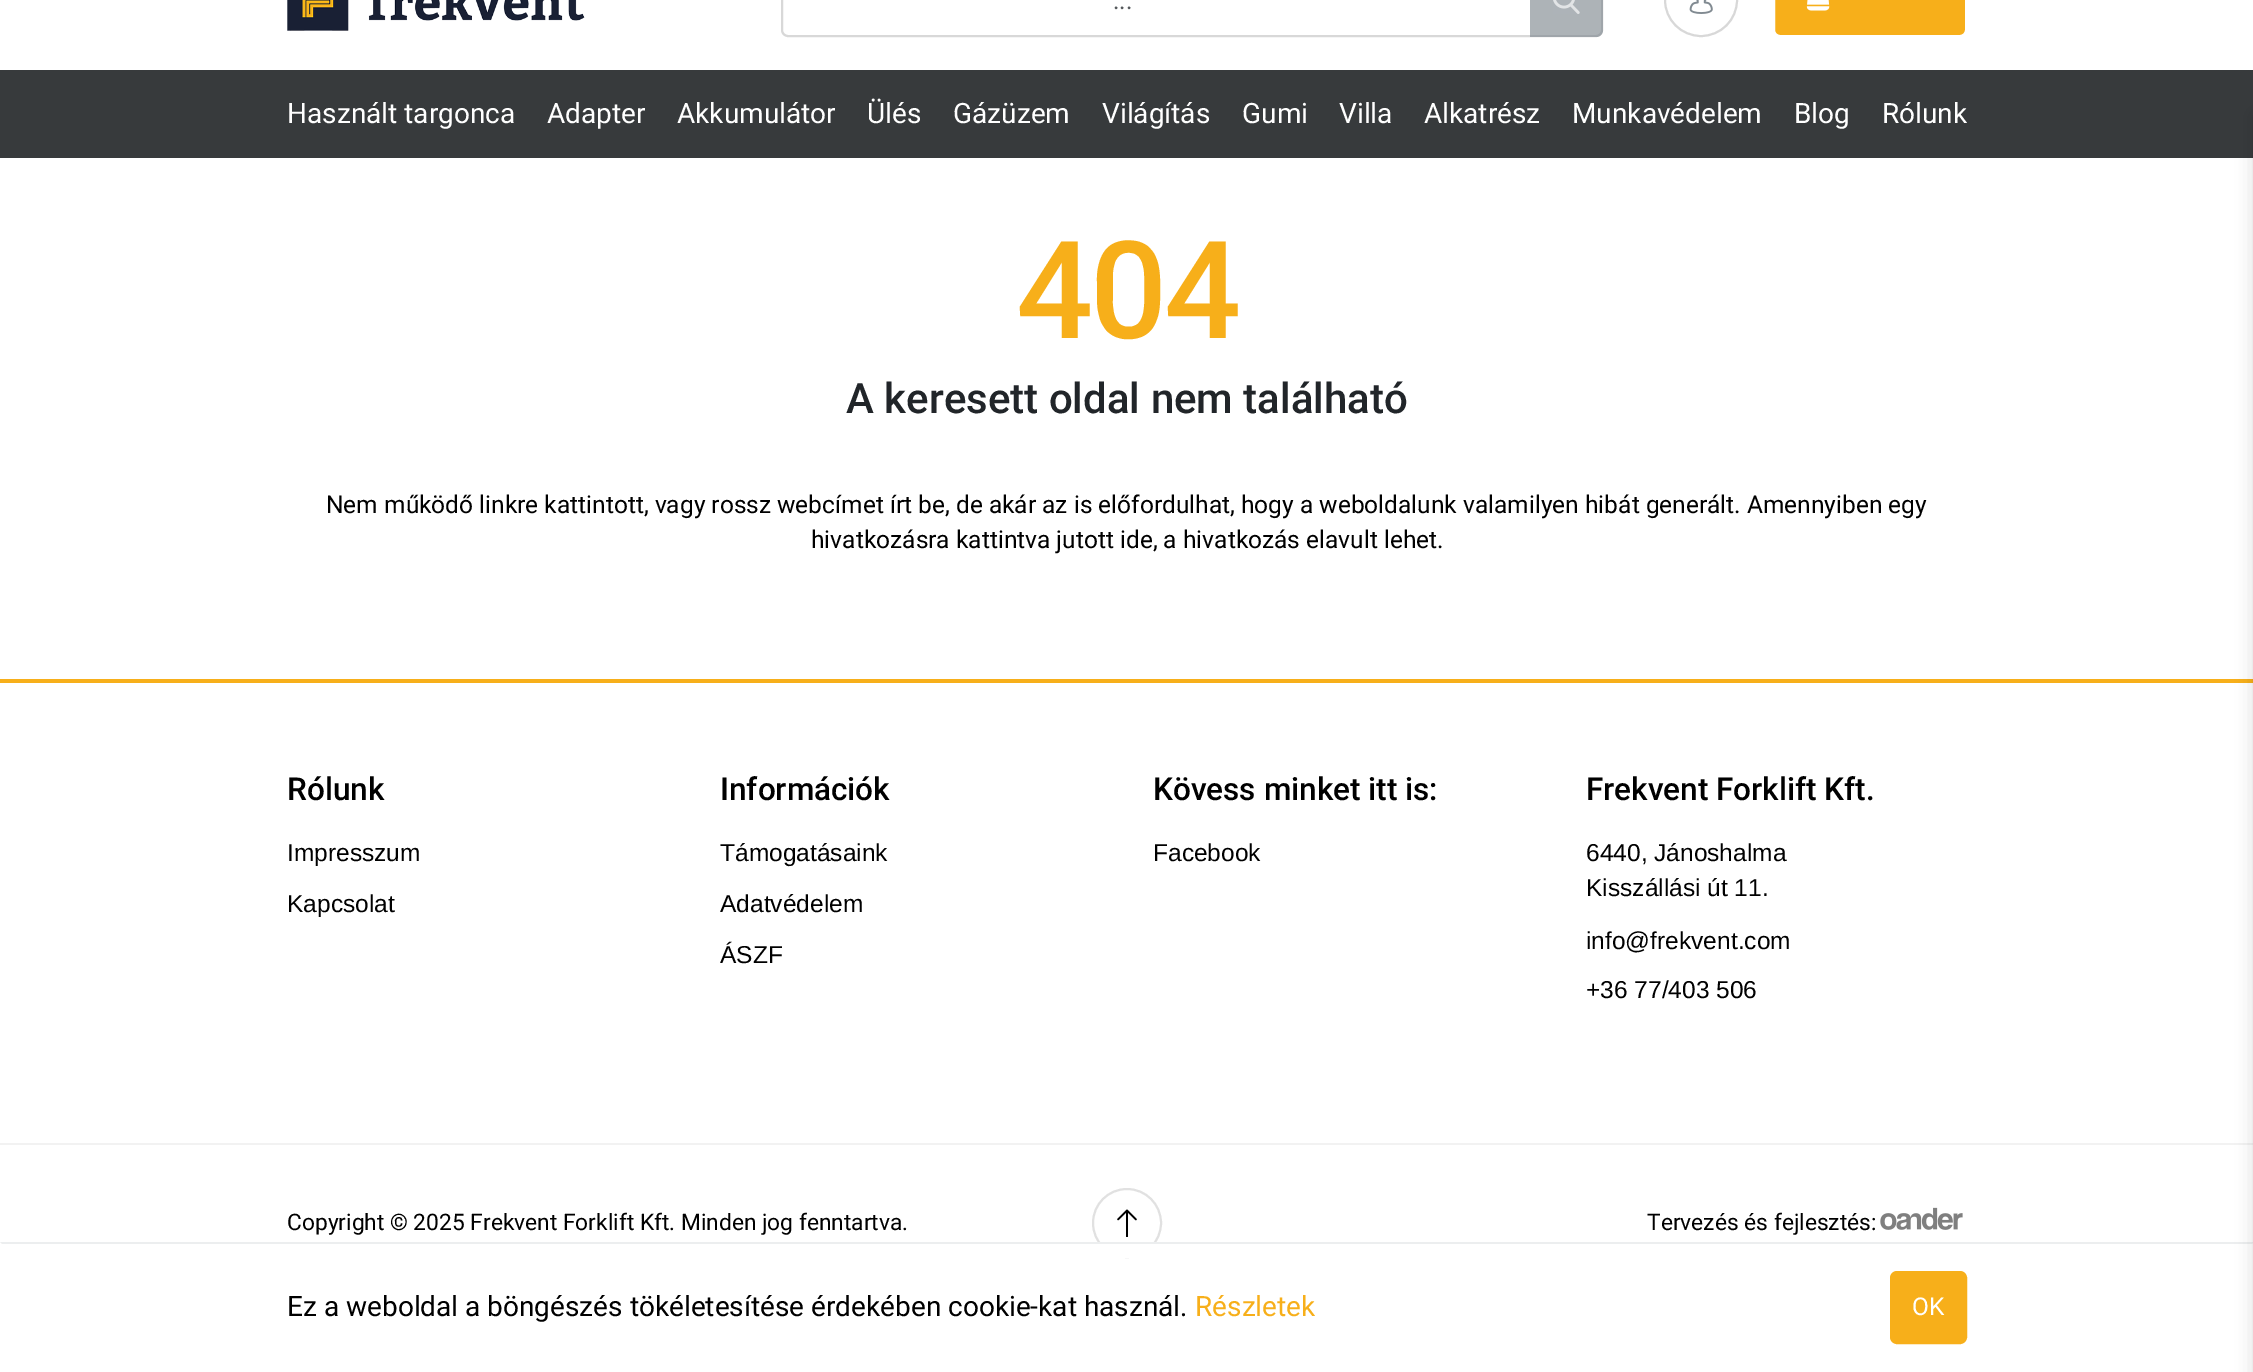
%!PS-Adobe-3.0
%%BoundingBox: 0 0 2253 1372
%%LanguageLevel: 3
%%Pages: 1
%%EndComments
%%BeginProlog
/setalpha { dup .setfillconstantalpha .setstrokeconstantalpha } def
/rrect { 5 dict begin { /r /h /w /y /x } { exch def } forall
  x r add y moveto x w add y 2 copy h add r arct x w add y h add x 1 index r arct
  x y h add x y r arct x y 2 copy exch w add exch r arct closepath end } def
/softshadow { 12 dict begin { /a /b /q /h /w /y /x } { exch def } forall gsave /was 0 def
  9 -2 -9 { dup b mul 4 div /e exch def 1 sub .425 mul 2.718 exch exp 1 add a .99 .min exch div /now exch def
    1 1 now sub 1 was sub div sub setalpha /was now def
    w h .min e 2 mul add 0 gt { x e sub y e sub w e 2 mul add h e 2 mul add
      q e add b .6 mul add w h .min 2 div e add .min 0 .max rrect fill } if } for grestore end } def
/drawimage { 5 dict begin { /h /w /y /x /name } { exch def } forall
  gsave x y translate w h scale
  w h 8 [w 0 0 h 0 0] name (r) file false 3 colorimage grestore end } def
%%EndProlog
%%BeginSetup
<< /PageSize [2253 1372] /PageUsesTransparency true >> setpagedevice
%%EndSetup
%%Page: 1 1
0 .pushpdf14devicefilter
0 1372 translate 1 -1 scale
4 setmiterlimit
1 setgray
0 0 2253 1372 rectfill
(images/1.raw) 287 0 298 31 drawimage
0.847 setgray
2 setlinewidth
782 -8 820 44 6 rrect stroke
0.65 setalpha
0.506 0.541 0.569 setrgbcolor
newpath 1530 -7 moveto 1596 -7 lineto 1600 -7 1603 -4 1603 0 curveto 1603 30 lineto 1603 34 1600 37 1596 37 curveto 1530 37 lineto closepath fill
1 setalpha
(images/2.raw) 1553 0 27 14 drawimage
0.847 setgray
newpath 1701 0 36 0 360 arc closepath stroke
(images/3.raw) 1689 0 24 14 drawimage
0.969 0.686 0.102 setrgbcolor
1774 -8 192 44 6 rrect gsave fill grestore
1 setgray
stroke
(images/4.raw) 1806 0 24 11 drawimage
0.216 0.227 0.235 setrgbcolor
0 70 2253 88 rectfill
0.969 0.686 0.102 setrgbcolor
0 679 2253 4 rectfill
0.949 setgray
0 1143 2253 2 rectfill
0.882 setgray
newpath 1127 1223 34 0 360 arc closepath stroke
1 setgray
1098 1243 58 15 rectfill
0.925 0.933 0.937 setrgbcolor
newpath 0 1242 moveto 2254 1242 lineto 2252 1244 lineto 2 1244 lineto closepath fill
0 setgray
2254 114 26 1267 0 9 0.15 softshadow
(images/5.raw) 1117 1209 20 28 drawimage
(images/6.raw) 1880 1207 83 23 drawimage
0.969 0.686 0.102 setrgbcolor
1891 1272 75 71 6 rrect gsave fill grestore
stroke
/Roboto-Regular [24.5 0 0 -24.5 0 0] selectfont
0.333 0.349 0.361 setrgbcolor
1113 9 moveto (...) show
/Roboto-Regular [28 0 0 -28 0 0] selectfont
1 setgray
287 123 moveto (Használt targonca) show
547 123 moveto (Adapter) show
677 123 moveto (Akkumulátor) show
867 123 moveto (Ülés) show
953 123 moveto (Gázüzem) show
1102 123 moveto (Világítás) show
1242 123 moveto (Gumi) show
1339 123 moveto (Villa) show
1424 123 moveto (Alkatrész) show
1572 123 moveto (Munkavédelem) show
1794 123 moveto (Blog) show
1882 123 moveto (Rólunk) show
/Roboto-Medium [136 0 0 -136 0 0] selectfont
0.969 0.686 0.102 setrgbcolor
1016 338 moveto -3.5 0 (404) ashow
/Roboto-Medium [42 0 0 -42 0 0] selectfont
0.129 0.145 0.161 setrgbcolor
846 413 moveto (A keresett oldal nem található) show
/Roboto-Regular [24.5 0 0 -24.5 0 0] selectfont
0 setgray
326 513 moveto (Nem működő linkre kattintott, vagy rossz webcímet írt be, de akár az is előfordulhat, hogy a weboldalunk valamilyen hibát generált. Amennyiben egy) show
811 548 moveto (hivatkozásra kattintva jutott ide, a hivatkozás elavult lehet.) show
/Roboto-Medium [31.5 0 0 -31.5 0 0] selectfont
287 800 moveto (Rólunk) show
/LiberationSans-Regular [24.5 0 0 -24.5 0 0] selectfont
287 861 moveto (Impresszum) show
287 912 moveto (Kapcsolat) show
/Roboto-Medium [31.5 0 0 -31.5 0 0] selectfont
720 800 moveto (Információk) show
/LiberationSans-Regular [24.5 0 0 -24.5 0 0] selectfont
720 861 moveto (Támogatásaink) show
720 912 moveto (Adatvédelem) show
720 963 moveto (ÁSZF) show
/Roboto-Medium [31.5 0 0 -31.5 0 0] selectfont
1153 800 moveto (Kövess minket itt is:) show
/LiberationSans-Regular [24.5 0 0 -24.5 0 0] selectfont
1153 861 moveto (Facebook) show
/Roboto-Medium [31.5 0 0 -31.5 0 0] selectfont
1586 800 moveto (Frekvent Forklift Kft.) show
/LiberationSans-Regular [24.5 0 0 -24.5 0 0] selectfont
1586 861 moveto (6440, Jánoshalma) show
1586 896 moveto (Kisszállási út 11.) show
1586 949 moveto (info@frekvent.com) show
1586 998 moveto (+36 77/403 506) show
/Roboto-Regular [22.75 0 0 -22.75 0 0] selectfont
287 1230 moveto (Copyright © 2025 Frekvent Forklift Kft. Minden jog fenntartva.) show
1647 1230 moveto (Tervezés és fejlesztés:) show
/Roboto-Regular [28 0 0 -28 0 0] selectfont
287 1316 moveto (Ez a weboldal a böngészés tökéletesítése érdekében cookie-kat használ.) show
0.969 0.686 0.102 setrgbcolor
1195 1316 moveto (Részletek) show
/Roboto-Regular [24.5 0 0 -24.5 0 0] selectfont
1 setgray
1912 1315 moveto (OK) show
.poppdf14devicefilter showpage
%%EOF
